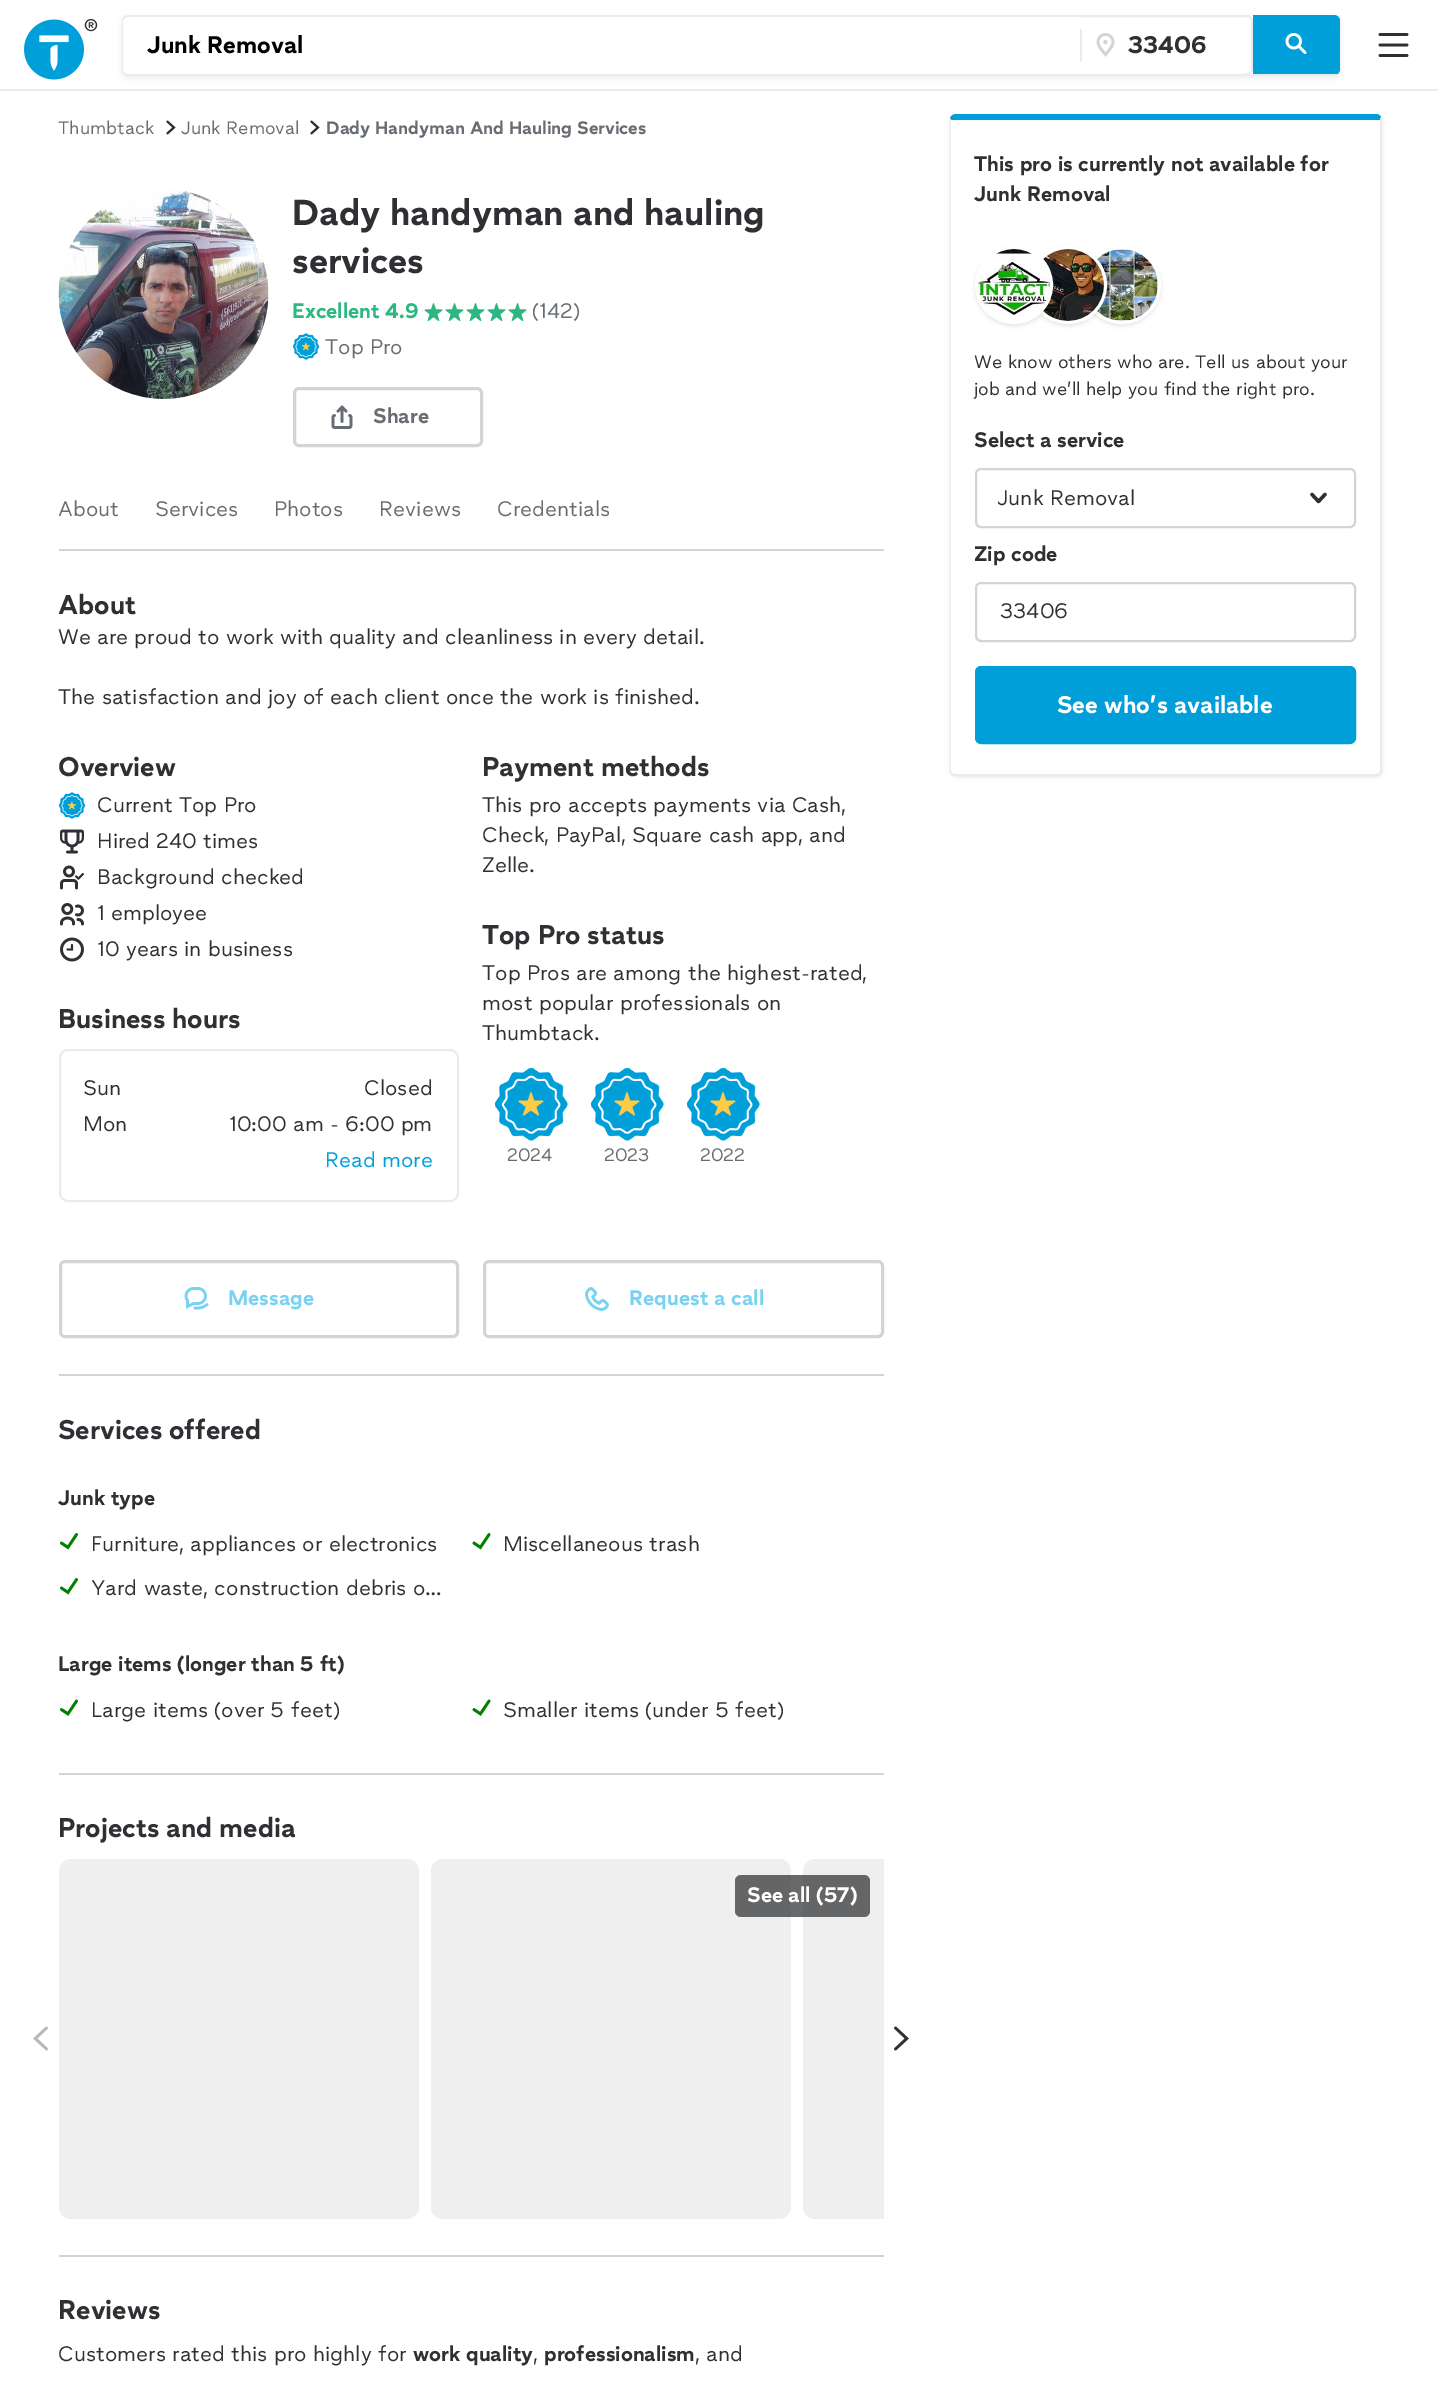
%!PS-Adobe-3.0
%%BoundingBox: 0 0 1438 2382
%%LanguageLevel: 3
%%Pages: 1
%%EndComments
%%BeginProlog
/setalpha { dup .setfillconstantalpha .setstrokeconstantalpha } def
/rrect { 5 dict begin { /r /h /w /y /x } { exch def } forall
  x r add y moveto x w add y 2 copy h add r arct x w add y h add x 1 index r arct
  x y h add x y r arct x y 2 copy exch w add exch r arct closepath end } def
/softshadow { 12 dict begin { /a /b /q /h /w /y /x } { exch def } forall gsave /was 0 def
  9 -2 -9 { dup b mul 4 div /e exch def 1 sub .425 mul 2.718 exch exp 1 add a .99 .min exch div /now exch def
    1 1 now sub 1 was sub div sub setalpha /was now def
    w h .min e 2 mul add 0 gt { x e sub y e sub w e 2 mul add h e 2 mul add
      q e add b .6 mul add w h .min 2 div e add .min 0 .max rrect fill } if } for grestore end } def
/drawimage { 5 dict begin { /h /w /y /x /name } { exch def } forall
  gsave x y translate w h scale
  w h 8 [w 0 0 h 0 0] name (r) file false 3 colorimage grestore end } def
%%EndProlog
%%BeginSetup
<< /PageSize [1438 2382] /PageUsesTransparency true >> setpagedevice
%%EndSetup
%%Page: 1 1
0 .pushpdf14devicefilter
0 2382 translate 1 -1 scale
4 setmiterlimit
1 setgray
0 0 1438 2382 rectfill
0.914 0.925 0.929 setrgbcolor
0 89 1438 2 rectfill
(images/1.raw) 24 19 74 61 drawimage
gsave
newpath 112 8 moveto 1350 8 lineto 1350 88 lineto 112 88 lineto closepath 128 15 moveto 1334 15 lineto 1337.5 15 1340 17.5 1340 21 curveto 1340 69 lineto 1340 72.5 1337.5 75 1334 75 curveto 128 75 lineto 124.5 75 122 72.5 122 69 curveto 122 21 lineto 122 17.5 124.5 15 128 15 curveto closepath eoclip newpath
122 18 1218 60 6 3 1 softshadow
grestore
2 setlinewidth
123 16 1129 58 5 rrect stroke
1 setgray
newpath 129 17 moveto 1080 17 lineto 1080 74 lineto 129 74 lineto 125.5 74 123 71.5 123 68 curveto 123 23 lineto 123 19.5 125.5 17 129 17 curveto closepath fill
0.914 0.925 0.929 setrgbcolor
1080 29 2 33 rectfill
(images/2.raw) 1096 33 19 24 drawimage
1 setgray
1080 73 165 1 rectfill
0 0.624 0.851 setrgbcolor
newpath 1253 15 moveto 1334 15 lineto 1337.5 15 1340 17.5 1340 21 curveto 1340 69 lineto 1340 72.5 1337.5 75 1334 75 curveto 1253 75 lineto closepath fill
0.914 0.925 0.929 setrgbcolor
1253 74 84 2 rectfill
(images/3.raw) 1285 33 22 21 drawimage
(images/4.raw) 1378 33 31 24 drawimage
(images/5.raw) 166 120 10 15 drawimage
(images/5.raw) 310 120 10 15 drawimage
(images/6.raw) 58 189 211 210 drawimage
(images/7.raw) 424 303 103 18 drawimage
(images/8.raw) 424 303 103 18 drawimage
(images/9.raw) 293 333 27 27 drawimage
0.827 0.831 0.835 setrgbcolor
3 setlinewidth
294.5 388.5 187 57 4.5 rrect stroke
(images/10.raw) 331 405 22 24 drawimage
59 549 825 2 rectfill
(images/9.raw) 59 792 27 27 drawimage
(images/11.raw) 60 829 24 25 drawimage
(images/12.raw) 60 865 24 25 drawimage
(images/13.raw) 60 903 24 23 drawimage
(images/14.raw) 60 937 24 25 drawimage
0.914 0.925 0.929 setrgbcolor
2 setlinewidth
60 1050 398 151 8 rrect stroke
(images/15.raw) 494 1067 74 74 drawimage
(images/15.raw) 590 1067 74 74 drawimage
(images/15.raw) 686 1067 74 74 drawimage
0.827 0.831 0.835 setrgbcolor
3 setlinewidth
60.5 1261.5 397 75 4.5 rrect stroke
(images/16.raw) 184 1287 25 23 drawimage
484.5 1261.5 398 75 4.5 rrect stroke
(images/17.raw) 585 1287 24 24 drawimage
59 1374 825 2 rectfill
(images/18.raw) 60 1533 18 17 drawimage
(images/19.raw) 472 1533 19 17 drawimage
(images/18.raw) 60 1578 18 17 drawimage
(images/20.raw) 60 1699 18 17 drawimage
(images/21.raw) 472 1699 19 17 drawimage
59 1773 825 2 rectfill
0.937 setgray
59 1859 360 360 12 rrect fill
431 1859 360 360 12 rrect fill
newpath 815 1859 moveto 884 1859 lineto 884 2219 lineto 815 2219 lineto 808.5 2219 803 2213.5 803 2207 curveto 803 1871 lineto 803 1864.5 808.5 1859 815 1859 curveto closepath fill
0.72 setalpha
0.184 0.188 0.2 setrgbcolor
735 1875 135 42 6 rrect fill
1 setalpha
(images/22.raw) 33 2026 15 25 drawimage
(images/23.raw) 894 2026 15 25 drawimage
0.827 0.831 0.835 setrgbcolor
59 2255 825 2 rectfill
gsave
newpath 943 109 moveto 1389 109 lineto 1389 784 lineto 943 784 lineto closepath 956 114 moveto 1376 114 lineto 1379.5 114 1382 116.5 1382 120 curveto 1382 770 lineto 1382 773.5 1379.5 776 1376 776 curveto 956 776 lineto 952.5 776 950 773.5 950 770 curveto 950 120 lineto 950 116.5 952.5 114 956 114 curveto closepath eoclip newpath
0 setgray
950 116 432 661 6 2 0.1 softshadow
grestore
0 0.624 0.851 setrgbcolor
newpath 956 114 moveto 953 114 951 116 950 118 curveto 951 120 lineto 1380 120 lineto 1381 117 lineto 1380 115 1378 114 1376 114 curveto closepath fill
0.914 0.925 0.929 setrgbcolor
newpath 1382 772 moveto 1380 774 lineto 1379 773 lineto 1380 772 1380 771 1380 770 curveto 1380 120 lineto 1381 117 lineto 1382 118 lineto closepath fill
newpath 953 776 moveto 951 774 lineto 952 773 lineto 953 773 954 774 956 774 curveto 1376 774 lineto 1377 774 1378 774 1379 773 curveto 1380 774 lineto 1378 776 lineto closepath fill
newpath 950 118 moveto 950 120 lineto 950 770 lineto 951 774 lineto 952 773 lineto 951 772 951 771 951 770 curveto 951 120 lineto closepath fill
0 setgray
1083 248 78 78 39 2 0.1 softshadow
1 setgray
newpath 1122 285 37.5 0 360 arc closepath gsave fill grestore
stroke
(images/26.raw) 1097 249 61 72 drawimage
0 setgray
1029 248 78 78 39 2 0.1 softshadow
1 setgray
newpath 1068 285 37.5 0 360 arc closepath gsave fill grestore
stroke
(images/25.raw) 1043 249 61 72 drawimage
0 setgray
975 248 78 78 39 2 0.1 softshadow
1 setgray
newpath 1014 285 37.5 0 360 arc closepath gsave fill grestore
stroke
(images/24.raw) 978 249 72 67 drawimage
0.827 0.831 0.835 setrgbcolor
2 setlinewidth
976 469 379 58 5 rrect stroke
0.184 0.188 0.2 setrgbcolor
3.4 setlinewidth
1 setlinecap
1 setlinejoin
newpath 1312 494.5 moveto 1318.5 501.5 lineto 1325 494.5 lineto stroke
0.827 0.831 0.835 setrgbcolor
2 setlinewidth
0 setlinecap
0 setlinejoin
976 583 379 58 5 rrect stroke
0 0.624 0.851 setrgbcolor
976.5 667.5 378 75 4.5 rrect gsave fill grestore
3 setlinewidth
stroke
/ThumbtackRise-Bold [24 0 0 -24 0 0] selectfont
0 setgray
147 53 moveto (Junk Removal) show
0.184 0.188 0.2 setrgbcolor
1128 53 moveto (33406) show
/ThumbtackRise-Regular [18 0 0 -18 0 0] selectfont
0.404 0.427 0.451 setrgbcolor
58 134 moveto (Thumbtack) show
181 134 moveto (Junk Removal) show
/ThumbtackRise-Bold [18 0 0 -18 0 0] selectfont
326 134 moveto (Dady Handyman And Hauling Services) show
/ThumbtackRise-Bold [36 0 0 -36 0 0] selectfont
0.184 0.188 0.2 setrgbcolor
292 225 moveto (Dady handyman and hauling) show
292 273 moveto (services) show
/ThumbtackRise-Bold [21 0 0 -21 0 0] selectfont
0.176 0.718 0.514 setrgbcolor
292 318 moveto (Excellent 4.9) show
/ThumbtackRise-Regular [21 0 0 -21 0 0] selectfont
0.404 0.427 0.451 setrgbcolor
532 318 moveto (\(142\)) show
325 354 moveto (Top Pro) show
/ThumbtackRise-Bold [21 0 0 -21 0 0] selectfont
373 423 moveto (Share) show
/ThumbtackRise-Regular [21 0 0 -21 0 0] selectfont
58 516 moveto (About) show
155 516 moveto (Services) show
274 516 moveto (Photos) show
379 516 moveto (Reviews) show
497 516 moveto (Credentials) show
/ThumbtackRise-Bold [27 0 0 -27 0 0] selectfont
0.184 0.188 0.2 setrgbcolor
58 614 moveto (About) show
/ThumbtackRise-Regular [21 0 0 -21 0 0] selectfont
58 644 moveto (We are proud to work with quality and cleanliness in every detail.) show
58 704 moveto (The satisfaction and joy of each client once the work is finished.) show
/ThumbtackRise-Bold [27 0 0 -27 0 0] selectfont
58 776 moveto (Overview) show
/ThumbtackRise-Regular [21 0 0 -21 0 0] selectfont
97 812 moveto (Current Top Pro) show
97 848 moveto (Hired 240 times) show
97 884 moveto (Background checked) show
97 920 moveto (1 employee) show
97 956 moveto (10 years in business) show
/ThumbtackRise-Bold [27 0 0 -27 0 0] selectfont
482 776 moveto (Payment methods) show
/ThumbtackRise-Regular [21 0 0 -21 0 0] selectfont
482 812 moveto (This pro accepts payments via Cash,) show
482 842 moveto (Check, PayPal, Square cash app, and) show
482 872 moveto (Zelle.) show
/ThumbtackRise-Bold [27 0 0 -27 0 0] selectfont
58 1028 moveto (Business hours) show
/ThumbtackRise-Regular [21 0 0 -21 0 0] selectfont
83 1095 moveto (Sun) show
364 1095 moveto (Closed) show
83 1131 moveto (Mon) show
229 1131 moveto (10:00 am - 6:00 pm) show
0 0.624 0.851 setrgbcolor
325 1167 moveto (Read more) show
/ThumbtackRise-Bold [27 0 0 -27 0 0] selectfont
0.184 0.188 0.2 setrgbcolor
482 944 moveto (Top Pro status) show
/ThumbtackRise-Regular [21 0 0 -21 0 0] selectfont
482 980 moveto (Top Pros are among the highest-rated,) show
482 1010 moveto (most popular professionals on) show
482 1040 moveto (Thumbtack.) show
/ThumbtackRise-Regular [18 0 0 -18 0 0] selectfont
0.404 0.427 0.451 setrgbcolor
507 1161 moveto (2024) show
604 1161 moveto (2023) show
gsave
701 1142 43 27 rectclip
700 1161 moveto (2022) show
grestore
/ThumbtackRise-Bold [21 0 0 -21 0 0] selectfont
0.475 0.824 0.949 setrgbcolor
228 1305 moveto (Message) show
629 1305 moveto (Request a call) show
/ThumbtackRise-Bold [27 0 0 -27 0 0] selectfont
0.184 0.188 0.2 setrgbcolor
58 1439 moveto (Services offered) show
/ThumbtackRise-Bold [21 0 0 -21 0 0] selectfont
58 1505 moveto (Junk type) show
/ThumbtackRise-Regular [21 0 0 -21 0 0] selectfont
91 1551 moveto (Furniture, appliances or electronics) show
503 1551 moveto (Miscellaneous trash) show
91 1595 moveto (Yard waste, construction debris o…) show
/ThumbtackRise-Bold [21 0 0 -21 0 0] selectfont
58 1671 moveto (Large items \(longer than 5 ft\)) show
/ThumbtackRise-Regular [21 0 0 -21 0 0] selectfont
91 1717 moveto (Large items \(over 5 feet\)) show
503 1717 moveto (Smaller items \(under 5 feet\)) show
/ThumbtackRise-Bold [27 0 0 -27 0 0] selectfont
58 1837 moveto (Projects and media) show
/ThumbtackRise-Bold [21 0 0 -21 0 0] selectfont
1 setgray
747 1902 moveto (See all \(57\)) show
/ThumbtackRise-Bold [27 0 0 -27 0 0] selectfont
0.184 0.188 0.2 setrgbcolor
58 2319 moveto (Reviews) show
/ThumbtackRise-Regular [21 0 0 -21 0 0] selectfont
58 2361 moveto (Customers rated this pro highly for) show
/ThumbtackRise-Bold [21 0 0 -21 0 0] selectfont
413 2361 moveto (work quality) show
/ThumbtackRise-Regular [21 0 0 -21 0 0] selectfont
533 2361 moveto (,) show
/ThumbtackRise-Bold [21 0 0 -21 0 0] selectfont
544 2361 moveto (professionalism) show
/ThumbtackRise-Regular [21 0 0 -21 0 0] selectfont
695 2361 moveto (, and) show
/ThumbtackRise-Bold [21 0 0 -21 0 0] selectfont
974 171 moveto (This pro is currently not available for) show
974 201 moveto (Junk Removal) show
/ThumbtackRise-Regular [18 0 0 -18 0 0] selectfont
974 368 moveto (We know others who are. Tell us about your) show
974 395 moveto (job and we’ll help you find the right pro.) show
/ThumbtackRise-Bold [21 0 0 -21 0 0] selectfont
974 447 moveto (Select a service) show
gsave
998 486 276 26 rectclip
/ThumbtackRise-Regular [21 0 0 -21 0 0] selectfont
997 505 moveto (Junk Removal) show
grestore
974 561 moveto (Zip code) show
/ThumbtackRise-Regular [21 0 0 -21 0 0] selectfont
1000 618 moveto (33406) show
/ThumbtackRise-Bold [24 0 0 -24 0 0] selectfont
1 setgray
1057 713 moveto (See who’s available) show
.poppdf14devicefilter showpage
%%EOF
